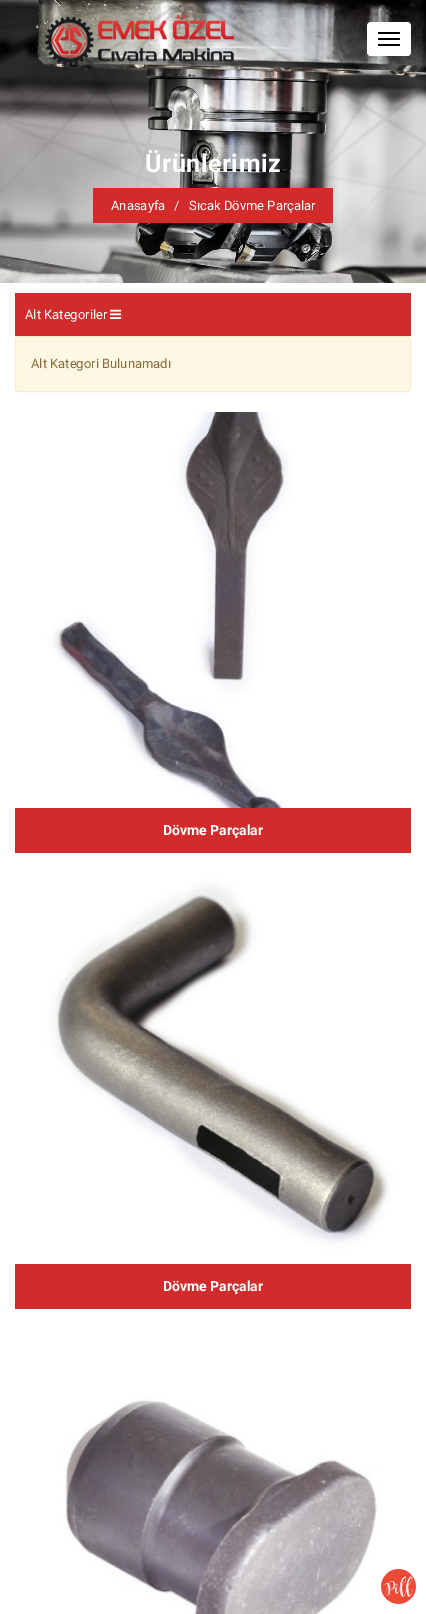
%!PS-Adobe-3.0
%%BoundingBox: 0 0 426 1614
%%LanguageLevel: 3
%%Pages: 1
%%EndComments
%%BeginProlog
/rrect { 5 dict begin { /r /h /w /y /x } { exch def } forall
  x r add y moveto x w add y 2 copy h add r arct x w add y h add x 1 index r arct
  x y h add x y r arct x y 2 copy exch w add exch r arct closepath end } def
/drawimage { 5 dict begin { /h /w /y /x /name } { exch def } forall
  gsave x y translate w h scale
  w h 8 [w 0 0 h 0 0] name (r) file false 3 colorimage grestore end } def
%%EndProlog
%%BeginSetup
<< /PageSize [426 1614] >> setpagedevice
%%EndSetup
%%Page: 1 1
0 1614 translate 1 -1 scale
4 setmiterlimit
1 setgray
0 0 426 1614 rectfill
(images/2.raw) 0 0 426 283 drawimage
(images/1.raw) 45 15 189 50 drawimage
367 22 44 34 4 rrect fill
0 setgray
378 32 22 2 1 rrect fill
378 38 22 2 1 rrect fill
378 44 22 2 1 rrect fill
0.824 0.169 0.169 setrgbcolor
93 188 240 35 rectfill
15 293 396 43 rectfill
(images/3.raw) 110 309 12 10 drawimage
0.988 0.973 0.89 setrgbcolor
15.5 336.5 395 55 3.5 rrect gsave fill grestore
0.98 0.922 0.8 setrgbcolor
stroke
0.824 0.169 0.169 setrgbcolor
15 808 396 45 rectfill
(images/4.raw) 15 412 396 396 drawimage
15 1264 396 45 rectfill
(images/5.raw) 15 868 396 396 drawimage
(images/6.raw) 15 1324 396 290 drawimage
(images/7.raw) 381 1569 35 35 drawimage
/Roboto-Bold [25 0 0 -25 0 0] selectfont
1 setgray
145 172 moveto 0.5 0 (Ürünlerimiz) ashow
/Roboto-Regular [13 0 0 -13 0 0] selectfont
111 210 moveto (Anasayfa) show
0.918 setgray
174 210 moveto (/) show
1 setgray
189 210 moveto (Sıcak Dövme Parçalar) show
25 319 moveto (Alt Kategoriler) show
0.541 0.427 0.231 setrgbcolor
31 368 moveto (Alt Kategori Bulunamadı) show
/Roboto-Bold [14 0 0 -14 0 0] selectfont
1 setgray
163 835 moveto (Dövme Parçalar) show
163 1291 moveto (Dövme Parçalar) show
showpage
%%EOF
